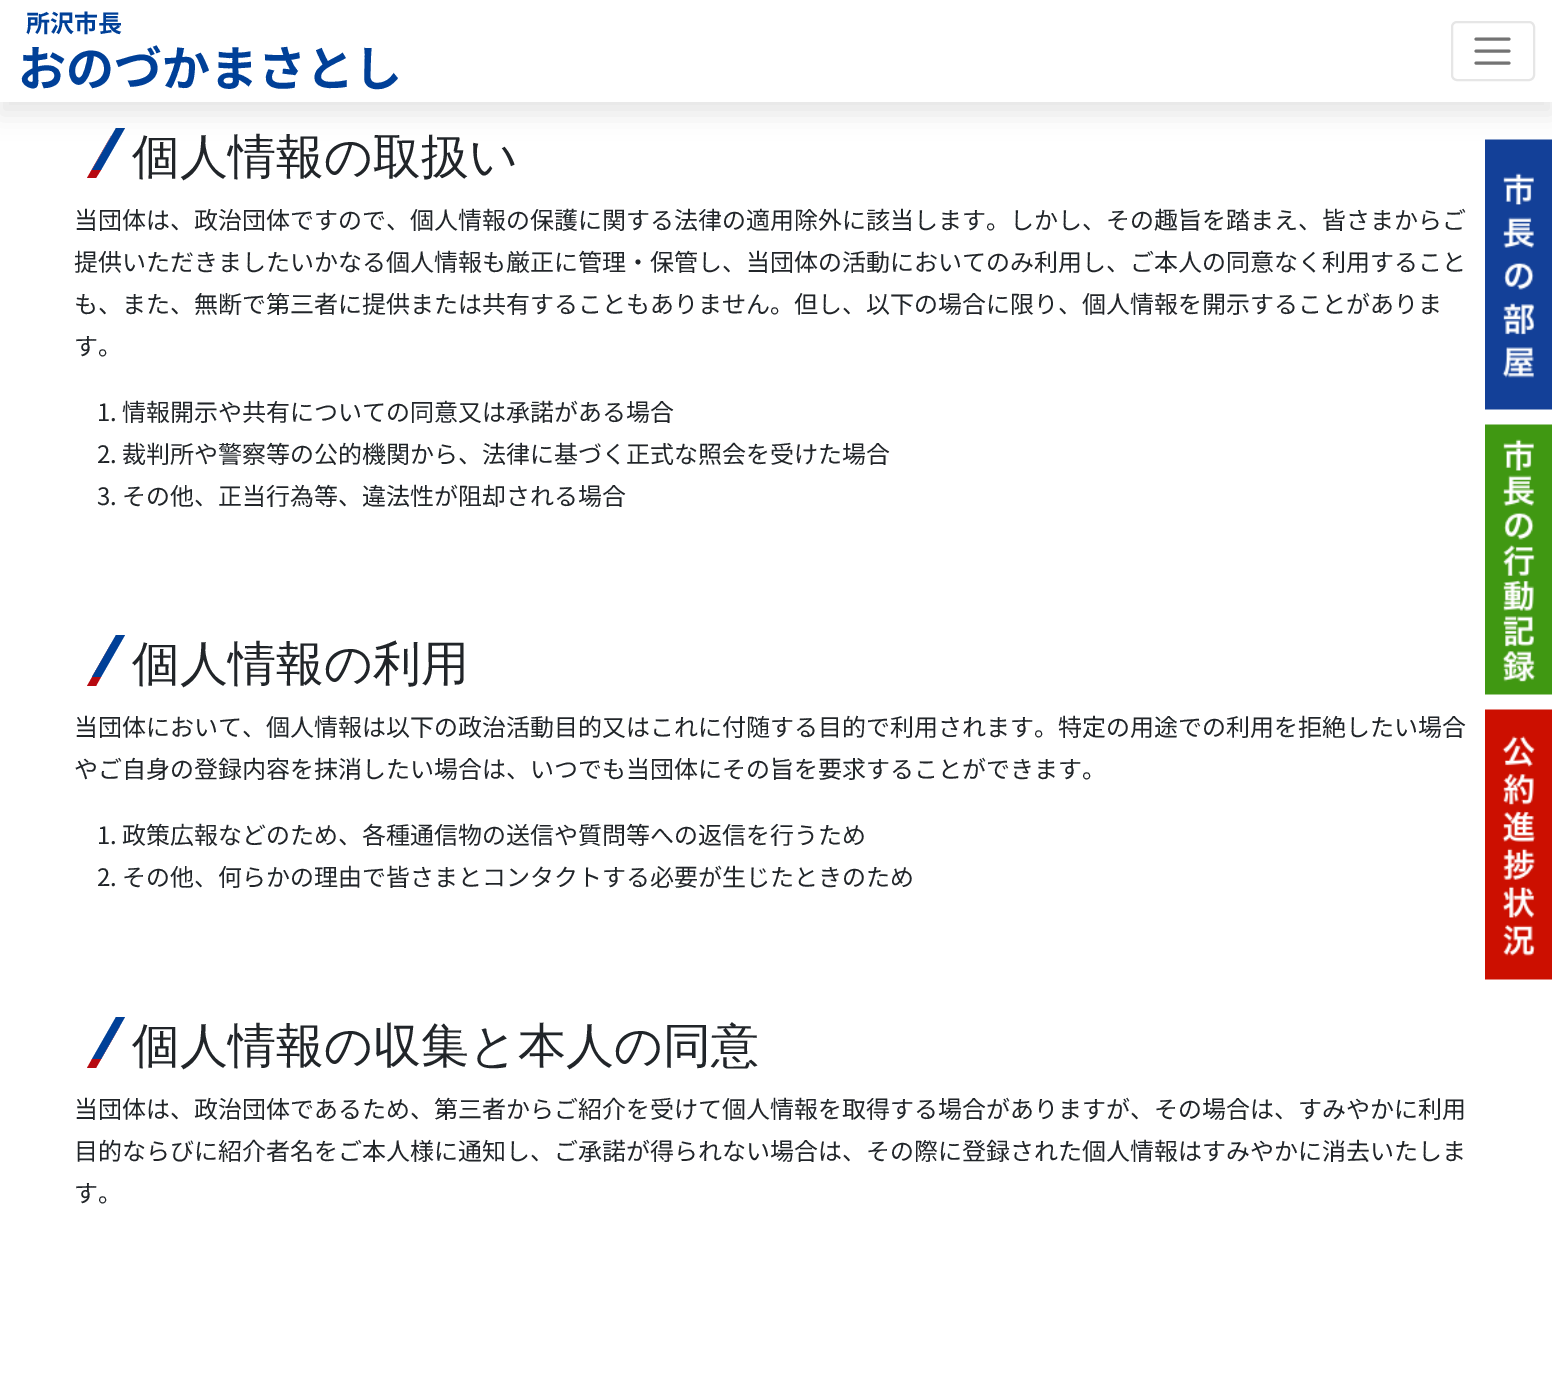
%!PS-Adobe-3.0
%%BoundingBox: 0 0 1552 1389
%%LanguageLevel: 3
%%Pages: 1
%%EndComments
%%BeginProlog
/setalpha { dup .setfillconstantalpha .setstrokeconstantalpha } def
/rrect { 5 dict begin { /r /h /w /y /x } { exch def } forall
  x r add y moveto x w add y 2 copy h add r arct x w add y h add x 1 index r arct
  x y h add x y r arct x y 2 copy exch w add exch r arct closepath end } def
/softshadow { 12 dict begin { /a /b /q /h /w /y /x } { exch def } forall gsave /was 0 def
  9 -2 -9 { dup b mul 4 div /e exch def 1 sub .425 mul 2.718 exch exp 1 add a .99 .min exch div /now exch def
    1 1 now sub 1 was sub div sub setalpha /was now def
    w h .min e 2 mul add 0 gt { x e sub y e sub w e 2 mul add h e 2 mul add
      q e add b .6 mul add w h .min 2 div e add .min 0 .max rrect fill } if } for grestore end } def
/drawimage { 5 dict begin { /h /w /y /x /name } { exch def } forall
  gsave x y translate w h scale
  w h 8 [w 0 0 h 0 0] name (r) file false 3 colorimage grestore end } def
%%EndProlog
%%BeginSetup
<< /PageSize [1552 1389] /PageUsesTransparency true >> setpagedevice
%%EndSetup
%%Page: 1 1
0 .pushpdf14devicefilter
0 1389 translate 1 -1 scale
4 setmiterlimit
1 setgray
0 0 1552 1389 rectfill
0.718 0.035 0.063 setrgbcolor
newpath 111 136 moveto 87 178 lineto 96 178 lineto 101 170 lineto 92 170 lineto closepath fill
0 0.251 0.596 setrgbcolor
newpath 116 128 moveto 125 128 lineto 101 170 lineto 92 170 lineto closepath fill
(images/1.raw) 1485 139 67 271 drawimage
0 setgray
0 12 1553 102 0 12 0.1 softshadow
1 setgray
0 0 1552 102 rectfill
0.902 setgray
2 setlinewidth
1452 22 82 58 5 rrect stroke
0.451 setgray
3 setlinewidth
1 setlinecap
newpath 1476 39 moveto 1509 39 lineto 1476 51 moveto 1509 51 lineto 1476 63 moveto 1509 63 lineto stroke
0.718 0.035 0.063 setrgbcolor
newpath 111 644 moveto 87 686 lineto 96 686 lineto 101 677 lineto 92 677 lineto closepath fill
0 0.251 0.596 setrgbcolor
newpath 116 635 moveto 125 635 lineto 101 677 lineto 92 677 lineto closepath fill
0.718 0.035 0.063 setrgbcolor
newpath 92 1059 moveto 87 1068 lineto 96 1068 lineto 120 1026 lineto 101 1059 lineto closepath fill
0 0.251 0.596 setrgbcolor
newpath 116 1017 moveto 125 1017 lineto 101 1059 lineto 92 1059 lineto closepath fill
(images/2.raw) 1485 424 67 271 drawimage
(images/3.raw) 1485 709 67 271 drawimage
/NotoSansJP-Bold [24 0 0 -24 0 0] selectfont
26 32 moveto (所沢市長) show
/NotoSansJP-Bold [48 0 0 -48 0 0] selectfont
18 86 moveto (おのづかまさとし) show
/WenQuanYiZenHei-Medium [48 0 0 -48 0 0] selectfont
0.129 0.145 0.161 setrgbcolor
132 173 moveto (個人情報の取扱い) show
/NotoSansJP-Regular [24 0 0 -24 0 0] selectfont
74 229 moveto (当団体は、政治団体ですので、個人情報の保護に関する法律の適用除外に該当します。しかし、その趣旨を踏まえ、皆さまからご) show
74 271 moveto (提供いただきましたいかなる個人情報も厳正に管理・保管し、当団体の活動においてのみ利用し、ご本人の同意なく利用すること) show
74 313 moveto (も、また、無断で第三者に提供または共有することもありません。但し、以下の場合に限り、個人情報を開示することがありま) show
74 355 moveto (す。) show
97 421 moveto (1. 情報開示や共有についての同意又は承諾がある場合) show
97 463 moveto (2. 裁判所や警察等の公的機関から、法律に基づく正式な照会を受けた場合) show
97 505 moveto (3. その他、正当行為等、違法性が阻却される場合) show
/WenQuanYiZenHei-Medium [48 0 0 -48 0 0] selectfont
132 680 moveto (個人情報の利用) show
/NotoSansJP-Regular [24 0 0 -24 0 0] selectfont
74 736 moveto (当団体において、個人情報は以下の政治活動目的又はこれに付随する目的で利用されます。特定の用途での利用を拒絶したい場合) show
74 778 moveto (やご自身の登録内容を抹消したい場合は、いつでも当団体にその旨を要求することができます。) show
97 844 moveto (1. 政策広報などのため、各種通信物の送信や質問等への返信を行うため) show
97 886 moveto (2. その他、何らかの理由で皆さまとコンタクトする必要が生じたときのため) show
/WenQuanYiZenHei-Medium [48 0 0 -48 0 0] selectfont
132 1062 moveto (個人情報の収集と本人の同意) show
/NotoSansJP-Regular [24 0 0 -24 0 0] selectfont
74 1118 moveto (当団体は、政治団体であるため、第三者からご紹介を受けて個人情報を取得する場合がありますが、その場合は、すみやかに利用) show
74 1160 moveto (目的ならびに紹介者名をご本人様に通知し、ご承諾が得られない場合は、その際に登録された個人情報はすみやかに消去いたしま) show
74 1202 moveto (す。) show
.poppdf14devicefilter showpage
%%EOF
